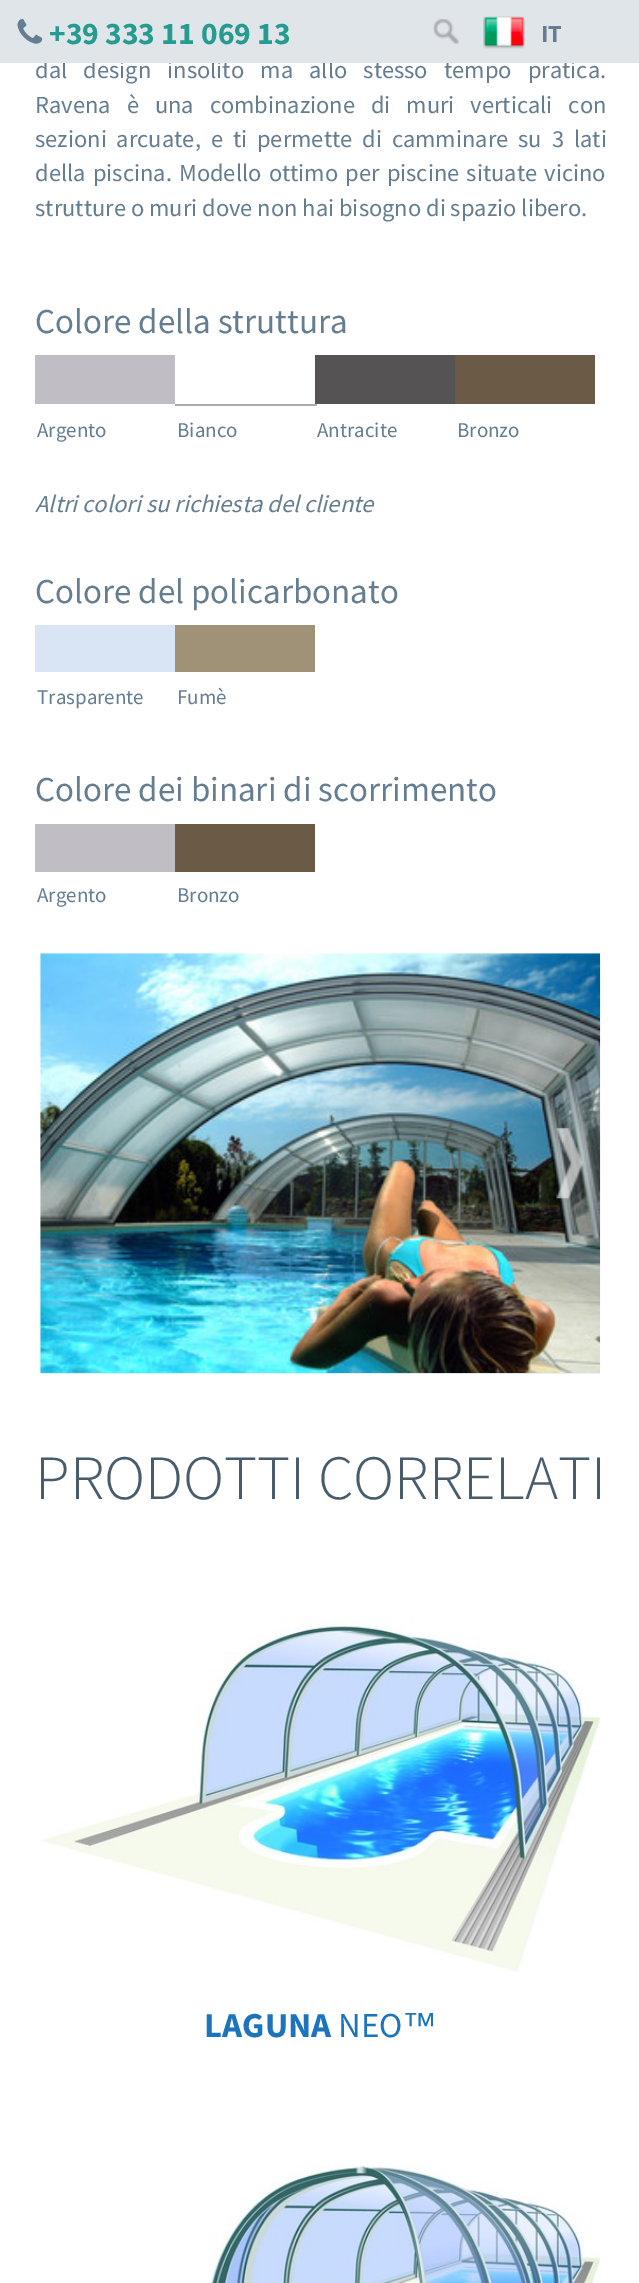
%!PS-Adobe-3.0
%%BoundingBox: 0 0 639 2283
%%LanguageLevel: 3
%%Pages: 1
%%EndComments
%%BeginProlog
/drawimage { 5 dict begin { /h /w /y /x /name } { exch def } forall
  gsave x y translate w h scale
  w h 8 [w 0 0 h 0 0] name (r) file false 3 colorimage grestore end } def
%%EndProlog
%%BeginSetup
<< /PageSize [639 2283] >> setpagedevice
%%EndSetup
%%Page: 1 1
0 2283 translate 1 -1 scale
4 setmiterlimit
1 setgray
0 0 639 2283 rectfill
0.753 0.741 0.769 setrgbcolor
35 355 140 49 rectfill
0.333 0.325 0.329 setrgbcolor
315 355 140 49 rectfill
0.42 0.353 0.275 setrgbcolor
455 355 140 49 rectfill
0.678 setgray
175 404 142 2 rectfill
0.851 0.898 0.961 setrgbcolor
35 625 140 47 rectfill
0.627 0.573 0.463 setrgbcolor
175 625 140 47 rectfill
0.753 0.741 0.769 setrgbcolor
35 824 140 48 rectfill
0.42 0.353 0.275 setrgbcolor
175 824 140 48 rectfill
(images/4.raw) 40 953 561 421 drawimage
(images/5.raw) 556 1128 27 71 drawimage
(images/6.raw) 40 1373 560 1 drawimage
(images/7.raw) 40 1618 561 354 drawimage
(images/8.raw) 210 2164 391 119 drawimage
/SourceSansPro-Regular [24.5 0 0 -24.5 0 0] selectfont
0.396 0.49 0.565 setrgbcolor
35 78 moveto 11.25 0 32 (dal design insolito ma allo stesso tempo pratica.) widthshow
0.878 0.898 0.914 setrgbcolor
0 0 639 63 rectfill
(images/2.raw) 433 19 26 25 drawimage
/SourceSansPro-Bold [24.5 0 0 -24.5 0 0] selectfont
0.396 0.49 0.565 setrgbcolor
541 42 moveto (IT) show
(images/3.raw) 483 16 42 33 drawimage
/SourceSansPro-Bold [31.5 0 0 -31.5 0 0] selectfont
0.149 0.612 0.565 setrgbcolor
49 44 moveto (+39 333 11 069 13) show
(images/1.raw) 17 19 26 25 drawimage
/SourceSansPro-Regular [24.5 0 0 -24.5 0 0] selectfont
0.396 0.49 0.565 setrgbcolor
35 113 moveto 11 0 32 (Ravena è una combinazione di muri verticali con) widthshow
35 147 moveto 5 0 32 (sezioni arcuate, e ti permette di camminare su 3 lati) widthshow
35 181 moveto 2.25 0 32 (della piscina. Modello ottimo per piscine situate vicino) widthshow
35 216 moveto (strutture o muri dove non hai bisogno di spazio libero.) show
/SourceSansPro-Regular [35 0 0 -35 0 0] selectfont
35 333 moveto (Colore della struttura) show
/SourceSansPro-Regular [21 0 0 -21 0 0] selectfont
37 437 moveto (Argento) show
177 437 moveto (Bianco) show
317 437 moveto (Antracite) show
457 437 moveto (Bronzo) show
/SourceSansPro-Italic [24.5 0 0 -24.5 0 0] selectfont
35 512 moveto (Altri colori su richiesta del cliente) show
/SourceSansPro-Regular [35 0 0 -35 0 0] selectfont
35 603 moveto (Colore del policarbonato) show
/SourceSansPro-Regular [21 0 0 -21 0 0] selectfont
37 704 moveto (Trasparente) show
177 704 moveto (Fumè) show
/SourceSansPro-Regular [35 0 0 -35 0 0] selectfont
35 801 moveto (Colore dei binari di scorrimento) show
/SourceSansPro-Regular [21 0 0 -21 0 0] selectfont
37 902 moveto (Argento) show
177 902 moveto (Bronzo) show
/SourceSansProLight-Light [63 0 0 -63 0 0] selectfont
0.286 0.361 0.42 setrgbcolor
35 1499 moveto (PRODOTTI CORRELATI) show
/SourceSansPro-Bold [35 0 0 -35 0 0] selectfont
0.11 0.459 0.737 setrgbcolor
204 2037 moveto (LAGUNA) show
/SourceSansPro-Regular [35 0 0 -35 0 0] selectfont
338 2037 moveto (NEO) show
/LiberationSans-Italic [35 0 0 -35 0 0] selectfont
402 2037 moveto (™) show
showpage
%%EOF
